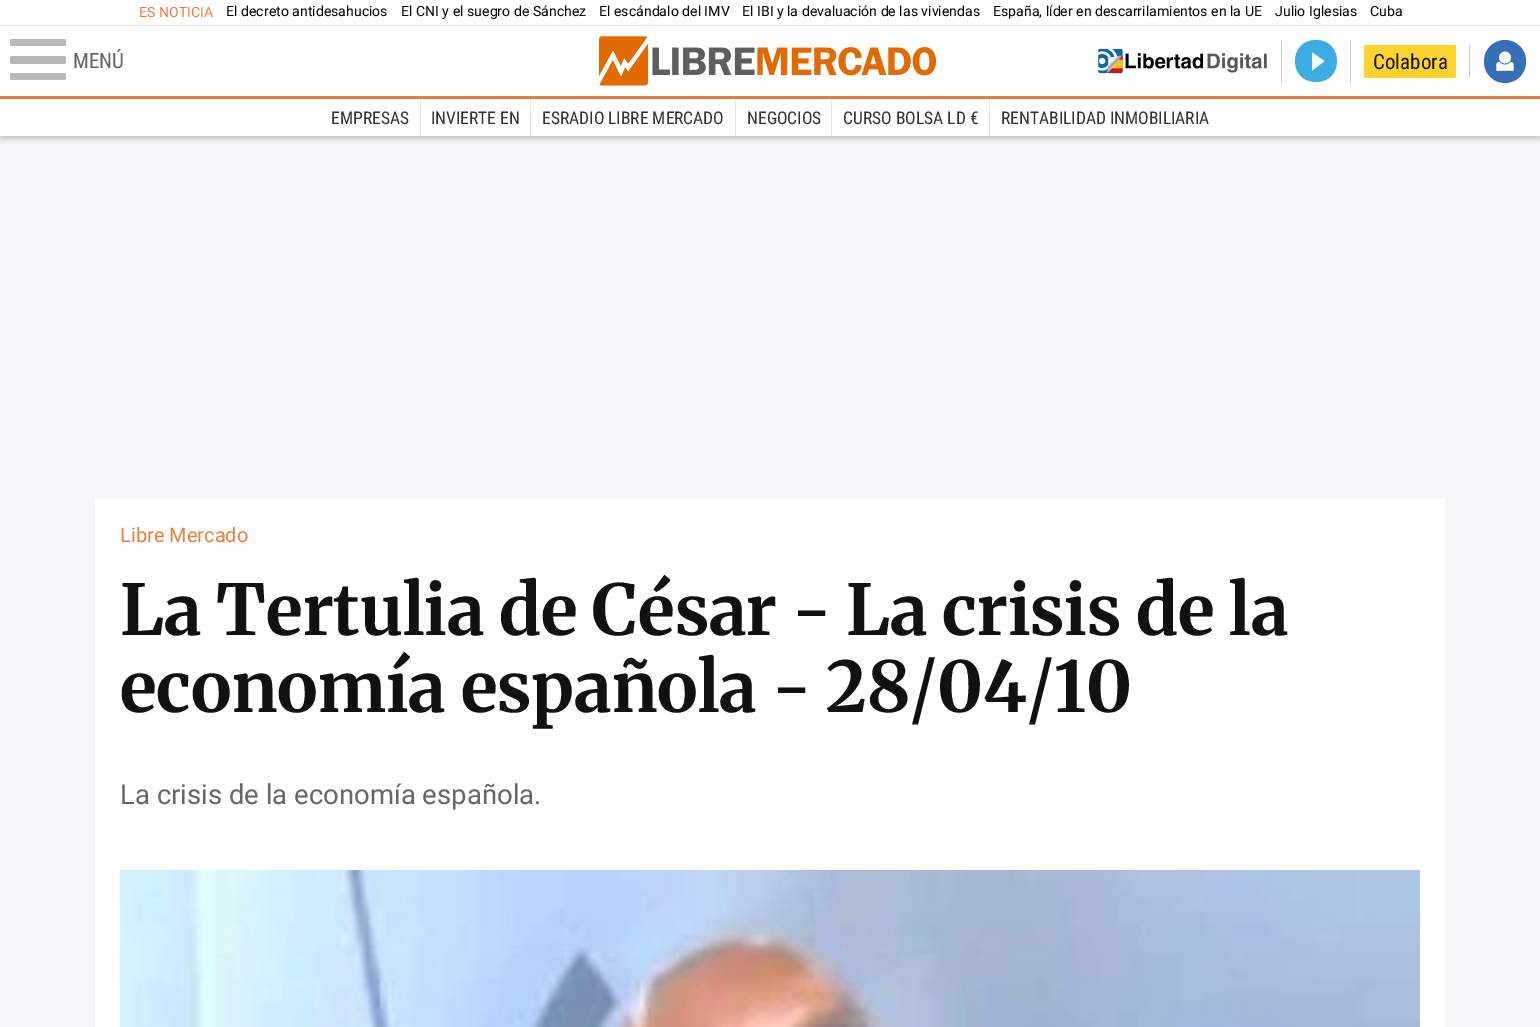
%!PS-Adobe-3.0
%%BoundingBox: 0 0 1540 1027
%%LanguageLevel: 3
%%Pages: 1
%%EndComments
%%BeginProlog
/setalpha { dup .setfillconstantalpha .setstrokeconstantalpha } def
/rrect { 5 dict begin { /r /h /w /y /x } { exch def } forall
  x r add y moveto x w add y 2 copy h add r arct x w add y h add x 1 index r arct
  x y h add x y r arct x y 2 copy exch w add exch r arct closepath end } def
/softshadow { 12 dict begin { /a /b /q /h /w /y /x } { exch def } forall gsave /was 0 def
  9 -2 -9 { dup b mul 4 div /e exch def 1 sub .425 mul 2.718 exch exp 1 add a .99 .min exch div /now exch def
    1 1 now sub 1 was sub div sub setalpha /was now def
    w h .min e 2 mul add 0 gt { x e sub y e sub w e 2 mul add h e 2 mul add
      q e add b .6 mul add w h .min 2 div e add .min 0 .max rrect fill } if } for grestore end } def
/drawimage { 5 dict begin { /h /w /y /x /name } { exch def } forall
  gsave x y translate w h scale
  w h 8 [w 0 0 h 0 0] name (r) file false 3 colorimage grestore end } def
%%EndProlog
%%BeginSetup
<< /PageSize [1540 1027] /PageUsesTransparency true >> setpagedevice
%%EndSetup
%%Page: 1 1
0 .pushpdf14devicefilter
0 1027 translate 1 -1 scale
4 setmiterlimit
0.961 0.965 0.973 setrgbcolor
0 0 1540 1027 rectfill
1 setgray
0 0 1540 25 rectfill
0.925 0.941 0.945 setrgbcolor
0 25 1540 1 rectfill
0.196 setgray
0 29 1540 72 0 2.5 0.44 softshadow
1 setgray
0 26 1540 70 rectfill
0.914 0.49 0.231 setrgbcolor
0 96 1540 3 rectfill
0.722 setgray
10 39 56 7 2 rrect fill
10 56 56 8 2 rrect fill
10 73 56 7 2 rrect fill
(images/1.raw) 599 36 337 50 drawimage
0.8 setgray
1281 40 1 43 rectfill
(images/2.raw) 1098 49 169 25 drawimage
1350 40 1 43 rectfill
0.231 0.678 0.89 setrgbcolor
newpath 1316 40 moveto 1288 40 1288 82 1316 82 curveto 1344 82 1344 40 1316 40 curveto closepath 1312 71 moveto 1312 52 lineto 1325 61 lineto closepath fill
0.8 setgray
1469 45 1 33 rectfill
0.996 0.827 0.188 setrgbcolor
1364 45 92 33 2 rrect fill
0.208 0.439 0.714 setrgbcolor
1484 40 42 43 21 rrect fill
(images/3.raw) 1496 51 18 20 drawimage
0.196 setgray
0 101 1540 38 0 2.5 0.22 softshadow
1 setgray
0 99 1540 37 rectfill
0.898 setgray
420 99 1 37 rectfill
530 99 1 37 rectfill
735 99 1 37 rectfill
831 99 1 37 rectfill
989 99 1 37 rectfill
1 setgray
95 499 1350 528 rectfill
(images/4.raw) 120 870 1300 157 drawimage
/Roboto-Regular [14.1 0 0 -14.1 0 0] selectfont
0.914 0.49 0.231 setrgbcolor
139 17 moveto (ES NOTICIA) show
0 setgray
226 16 moveto (El decreto antidesahucios) show
401 16 moveto (El CNI y el suegro de Sánchez) show
599 16 moveto (El escándalo del IMV) show
742 16 moveto (El IBI y la devaluación de las viviendas) show
993 16 moveto (España, líder en descarrilamientos en la UE) show
1275 16 moveto (Julio Iglesias) show
1370 16 moveto (Cuba) show
/RobotoCondensed-Regular [21 0 0 -21 0 0] selectfont
0.4 setgray
73 68 moveto (MENÚ) show
0.067 setgray
1373 69 moveto (Colabora) show
/RobotoCondensed-Regular [17.5 0 0 -17.5 0 0] selectfont
0.2 setgray
331 124 moveto (EMPRESAS) show
431 124 moveto (INVIERTE EN) show
542 124 moveto (ESRADIO LIBRE MERCADO) show
747 124 moveto (NEGOCIOS) show
843 124 moveto (CURSO BOLSA LD €) show
1001 124 moveto (RENTABILIDAD INMOBILIARIA) show
/Roboto-Regular [20 0 0 -20 0 0] selectfont
0.914 0.49 0.231 setrgbcolor
120 542 moveto (Libre Mercado) show
/Merriweather-Bold [70.1 0 0 -70.1 0 0] selectfont
0.067 setgray
120 635 moveto (La Tertulia de César - La crisis de la) show
120 712 moveto (economía española - 28/04/10) show
/Roboto-Regular [27.5 0 0 -27.5 0 0] selectfont
0.4 setgray
120 804 moveto (La crisis de la economía española.) show
.poppdf14devicefilter showpage
%%EOF
